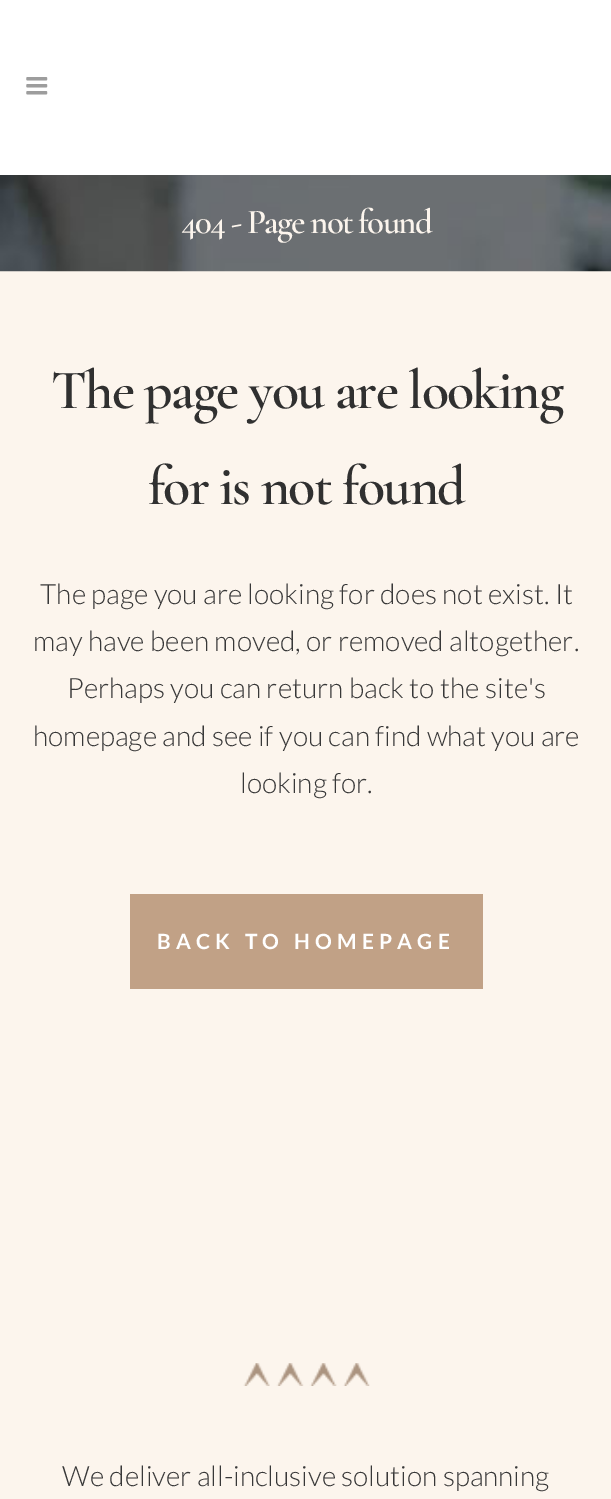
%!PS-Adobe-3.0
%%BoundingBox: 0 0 611 1499
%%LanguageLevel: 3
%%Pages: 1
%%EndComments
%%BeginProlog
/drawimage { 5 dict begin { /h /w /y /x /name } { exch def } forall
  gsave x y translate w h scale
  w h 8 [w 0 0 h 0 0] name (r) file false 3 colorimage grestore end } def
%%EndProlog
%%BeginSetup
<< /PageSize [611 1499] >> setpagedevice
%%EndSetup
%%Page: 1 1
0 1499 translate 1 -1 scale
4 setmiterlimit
0.988 0.961 0.929 setrgbcolor
0 0 611 1499 rectfill
1 setgray
0 0 611 175 rectfill
(images/1.raw) 26 77 22 18 drawimage
(images/2.raw) 0 175 611 97 drawimage
0.757 0.631 0.525 setrgbcolor
130 894 353 95 rectfill
(images/3.raw) 243 1363 127 23 drawimage
/CormorantGaramond-SemiBold [35 0 0 -35 0 0] selectfont
0.988 0.961 0.929 setrgbcolor
181 233 moveto -1.75 0 (404 - Page not found) ashow
/CormorantGaramond-SemiBold [56 0 0 -56 0 0] selectfont
0.188 setgray
51 408 moveto -1.75 0 (The page you are looking) ashow
148 504 moveto -1.75 0 (for is not found) ashow
/Lato-Light [28 0 0 -28 0 0] selectfont
0.22 setgray
40 604 moveto (The page you are looking for does not exist. It) show
33 651 moveto (may have been moved, or removed altogether.) show
67 698 moveto (Perhaps you can return back to the site's) show
33 746 moveto (homepage and see if you can find what you are) show
240 793 moveto (looking for.) show
/Lato-Bold [21 0 0 -21 0 0] selectfont
1 setgray
157 949 moveto 5.25 0 (BACK TO HOMEPAGE) ashow
/Lato-Light [28 0 0 -28 0 0] selectfont
0.22 setgray
62 1486 moveto (We deliver all-inclusive solution spanning) show
showpage
%%EOF
